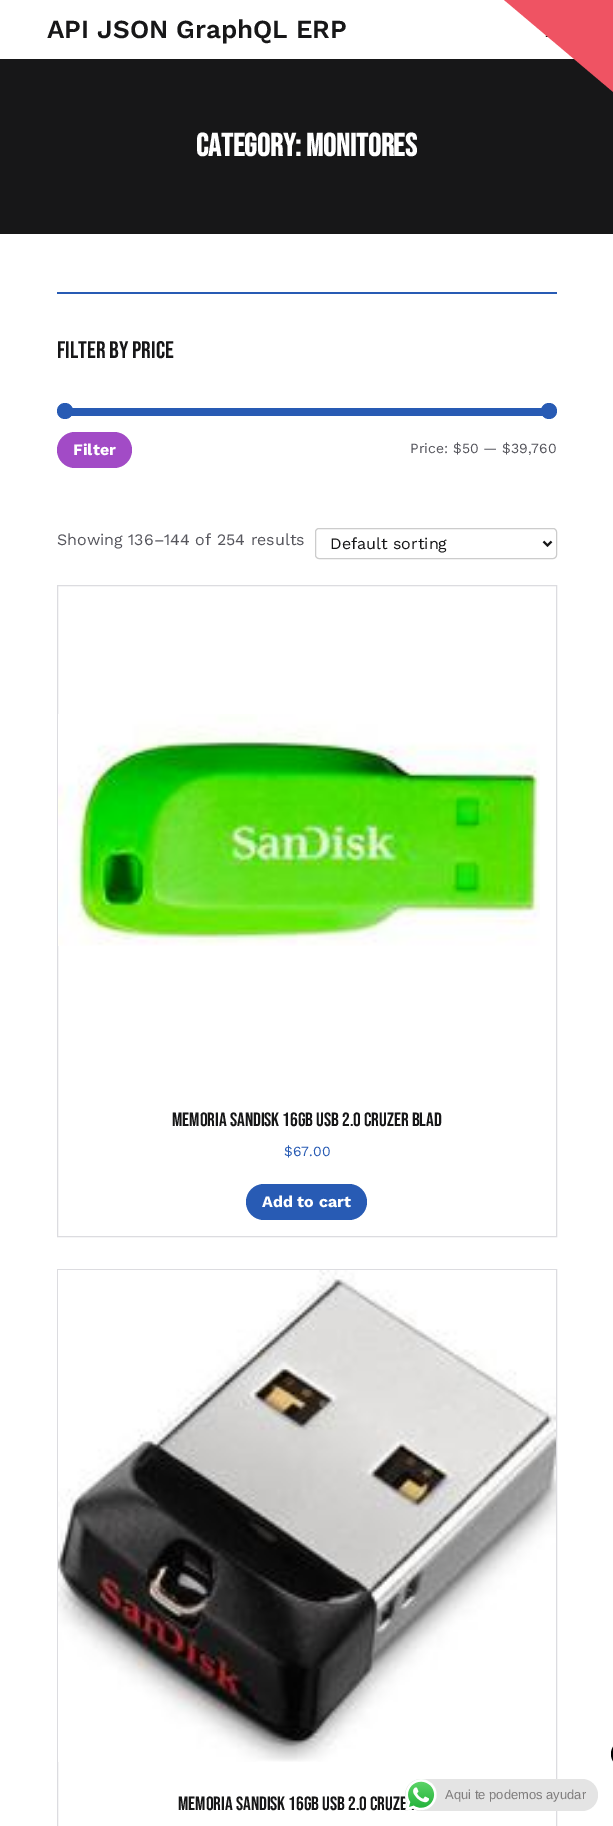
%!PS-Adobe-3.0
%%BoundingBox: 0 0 613 1826
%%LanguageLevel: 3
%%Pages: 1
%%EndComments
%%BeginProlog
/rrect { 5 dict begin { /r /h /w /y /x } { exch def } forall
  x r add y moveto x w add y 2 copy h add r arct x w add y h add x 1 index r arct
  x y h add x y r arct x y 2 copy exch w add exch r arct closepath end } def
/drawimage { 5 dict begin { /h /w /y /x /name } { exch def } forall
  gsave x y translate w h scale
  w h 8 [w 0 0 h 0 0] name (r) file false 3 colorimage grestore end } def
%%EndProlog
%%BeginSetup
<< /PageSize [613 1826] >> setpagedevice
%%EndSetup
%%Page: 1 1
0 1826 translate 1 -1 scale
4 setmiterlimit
1 setgray
0 0 613 1826 rectfill
(images/1.raw) 545 35 3 2 drawimage
0.09 0.09 0.094 setrgbcolor
0 59 613 175 rectfill
0.157 0.357 0.706 setrgbcolor
57 292 500 2 rectfill
65 408 484 8 rectfill
newpath 65 411 8 0 360 arc closepath fill
newpath 549 411 8 0 360 arc closepath fill
0.635 0.294 0.776 setrgbcolor
57 432 75 36 18 rrect fill
0.8 setgray
315.5 528.5 241 30 3.5 rrect stroke
0.09 0.09 0.094 setrgbcolor
2 setlinewidth
newpath 543.5 541.5 moveto 547.5 545.5 lineto 551.5 541.5 lineto stroke
0.863 0.863 0.878 setrgbcolor
1 setlinewidth
57.5 585.5 499 651 rectstroke
(images/2.raw) 58 714 482 232 drawimage
0.157 0.357 0.706 setrgbcolor
246 1184 121 36 18 rrect fill
0.863 0.863 0.878 setrgbcolor
57.5 1269.5 499 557 rectstroke
(images/3.raw) 58 1270 498 492 drawimage
0.937 0.325 0.388 setrgbcolor
newpath 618 96 moveto 503 -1 lineto 501 -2 501 -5 503 -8 curveto 599 -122 lineto 601 -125 604 -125 606 -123 curveto 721 -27 lineto 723 -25 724 -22 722 -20 curveto 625 95 lineto 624 97 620 98 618 96 curveto closepath fill
0 setgray
611 1740 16 28 14 rrect fill
/WorkSans-SemiBold [26 0 0 -26 0 0] selectfont
0.09 0.09 0.094 setrgbcolor
47 38 moveto (API JSON GraphQL ERP) show
/BebasNeue-Bold [32 0 0 -32 0 0] selectfont
1 setgray
196 156 moveto (Category: Monitores) show
/BebasNeue-Regular [24 0 0 -24 0 0] selectfont
0.09 0.09 0.094 setrgbcolor
57 358 moveto (Filter by price) show
/WorkSans-Bold [16 0 0 -16 0 0] selectfont
1 setgray
73 455 moveto (Filter) show
/WorkSans-Regular [14 0 0 -14 0 0] selectfont
0.337 0.337 0.365 setrgbcolor
410 453 moveto (Price: $50 — $39,760) show
/WorkSans-Regular [16 0 0 -16 0 0] selectfont
57 545 moveto (Showing 136–144 of 254 results) show
0.09 0.09 0.094 setrgbcolor
330 549 moveto (Default sorting) show
/BebasNeue-Regular [19.25 0 0 -19.25 0 0] selectfont
172 1126 moveto (MEMORIA SANDISK 16GB USB 2.0 CRUZER BLAD) show
/WorkSans-Regular [14 0 0 -14 0 0] selectfont
0.157 0.357 0.706 setrgbcolor
284 1156 moveto ($67.00) show
/WorkSans-Bold [16 0 0 -16 0 0] selectfont
1 setgray
262 1207 moveto (Add to cart) show
/BebasNeue-Regular [19.25 0 0 -19.25 0 0] selectfont
0.09 0.09 0.094 setrgbcolor
178 1810 moveto (MEMORIA SANDISK 16GB USB 2.0 CRUZE) show
0.894 setgray
405 1779 193 32 16 rrect fill
(images/4.raw) 405 1779 32 32 drawimage
/LiberationSans-Regular [13 0 0 -13 0 0] selectfont
0.498 0.49 0.49 setrgbcolor
445 1799 moveto (Aqui te podemos ayudar) show
showpage
%%EOF
